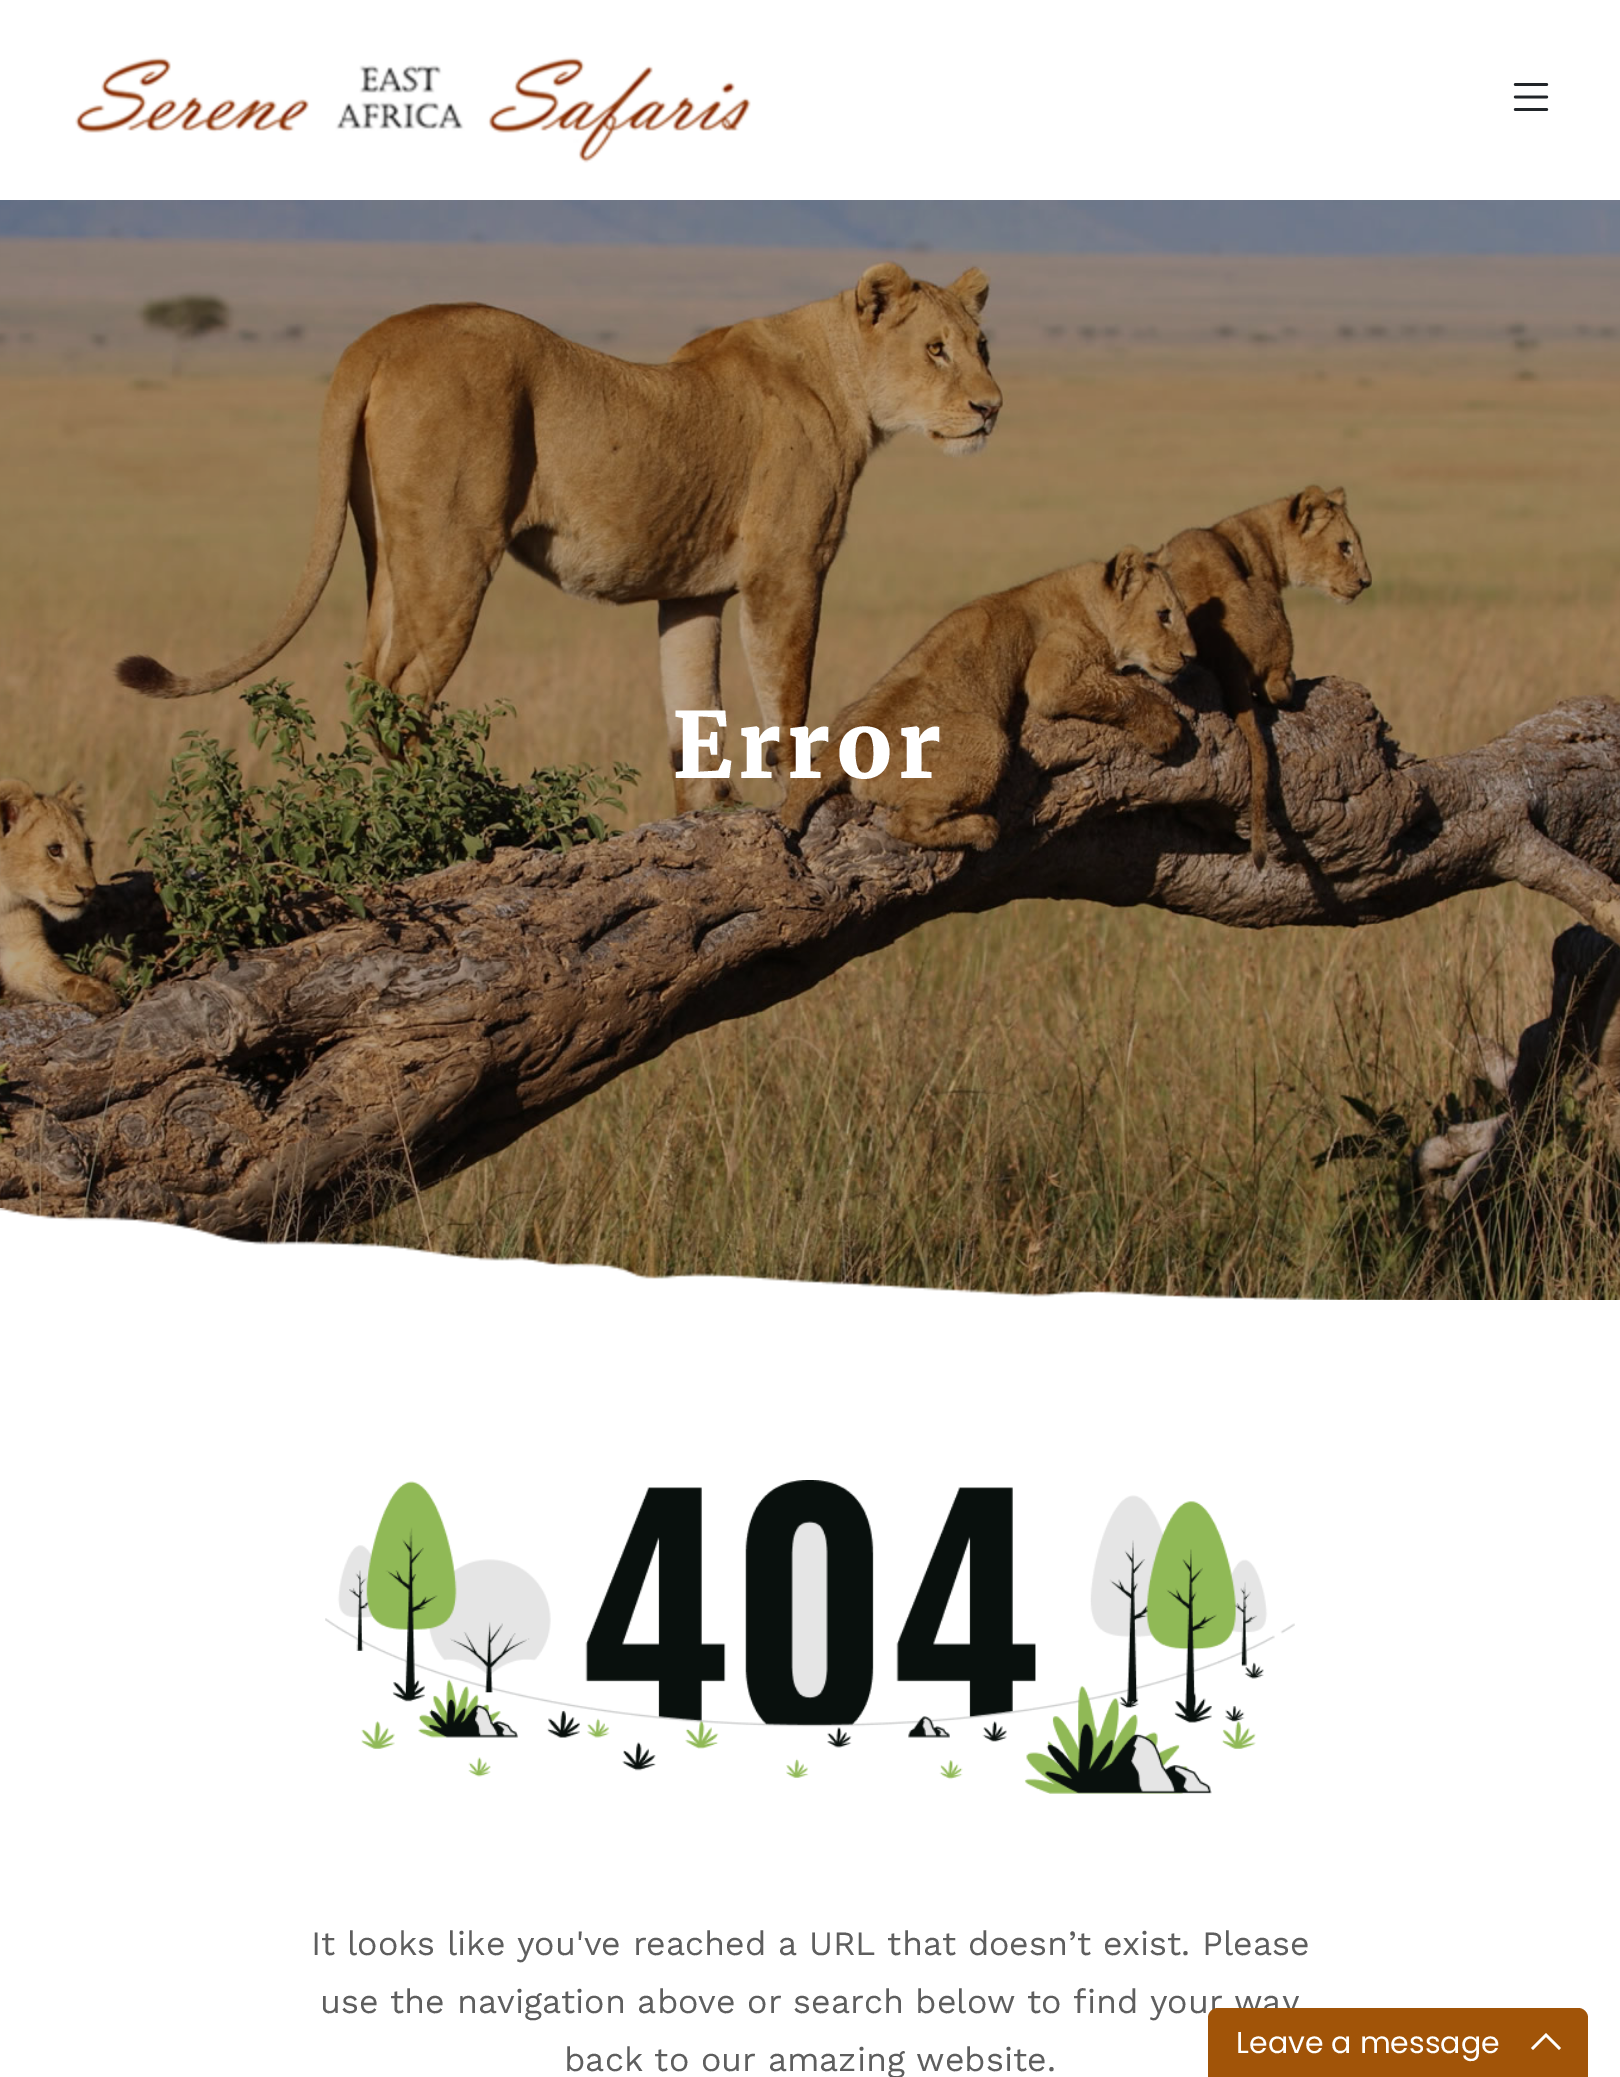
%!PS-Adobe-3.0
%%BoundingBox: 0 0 1620 2077
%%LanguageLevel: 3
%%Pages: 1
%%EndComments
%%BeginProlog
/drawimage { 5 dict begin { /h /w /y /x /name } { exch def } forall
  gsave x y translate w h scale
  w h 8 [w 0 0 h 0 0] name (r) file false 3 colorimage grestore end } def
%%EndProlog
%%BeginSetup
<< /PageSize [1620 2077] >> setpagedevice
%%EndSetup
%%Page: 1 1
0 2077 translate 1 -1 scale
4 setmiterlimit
1 setgray
0 0 1620 2077 rectfill
(images/1.raw) 75 57 676 106 drawimage
(images/2.raw) 1513 83 36 28 drawimage
(images/3.raw) 0 200 1620 1100 drawimage
(images/4.raw) 0 1208 1440 92 drawimage
(images/5.raw) 325 1480 970 314 drawimage
/Merriweather-Black [91 0 0 -91 0 0] selectfont
672 778 moveto 6 0 (Error) ashow
/WorkSans-Regular [34 0 0 -34 0 0] selectfont
0.369 setgray
311 1955 moveto (It looks like you've reached a URL that doesn’t exist. Please) show
320 2013 moveto (use the navigation above or search below to find your way) show
564 2071 moveto (back to our amazing website.) show
0.631 0.329 0.031 setrgbcolor
newpath 1218 2008 moveto 1578 2008 lineto 1583.5 2008 1588 2012.5 1588 2018 curveto 1588 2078 lineto 1208 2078 lineto 1208 2018 lineto 1208 2012.5 1212.5 2008 1218 2008 curveto closepath fill
/Poppins-Regular [30 0 0 -30 0 0] selectfont
1 setgray
1236 2053 moveto (Leave a message) show
newpath 1546 2033 moveto 1561 2048 lineto 1559 2050 lineto 1546 2037 lineto 1533 2050 lineto 1531 2048 lineto closepath fill
showpage
%%EOF
